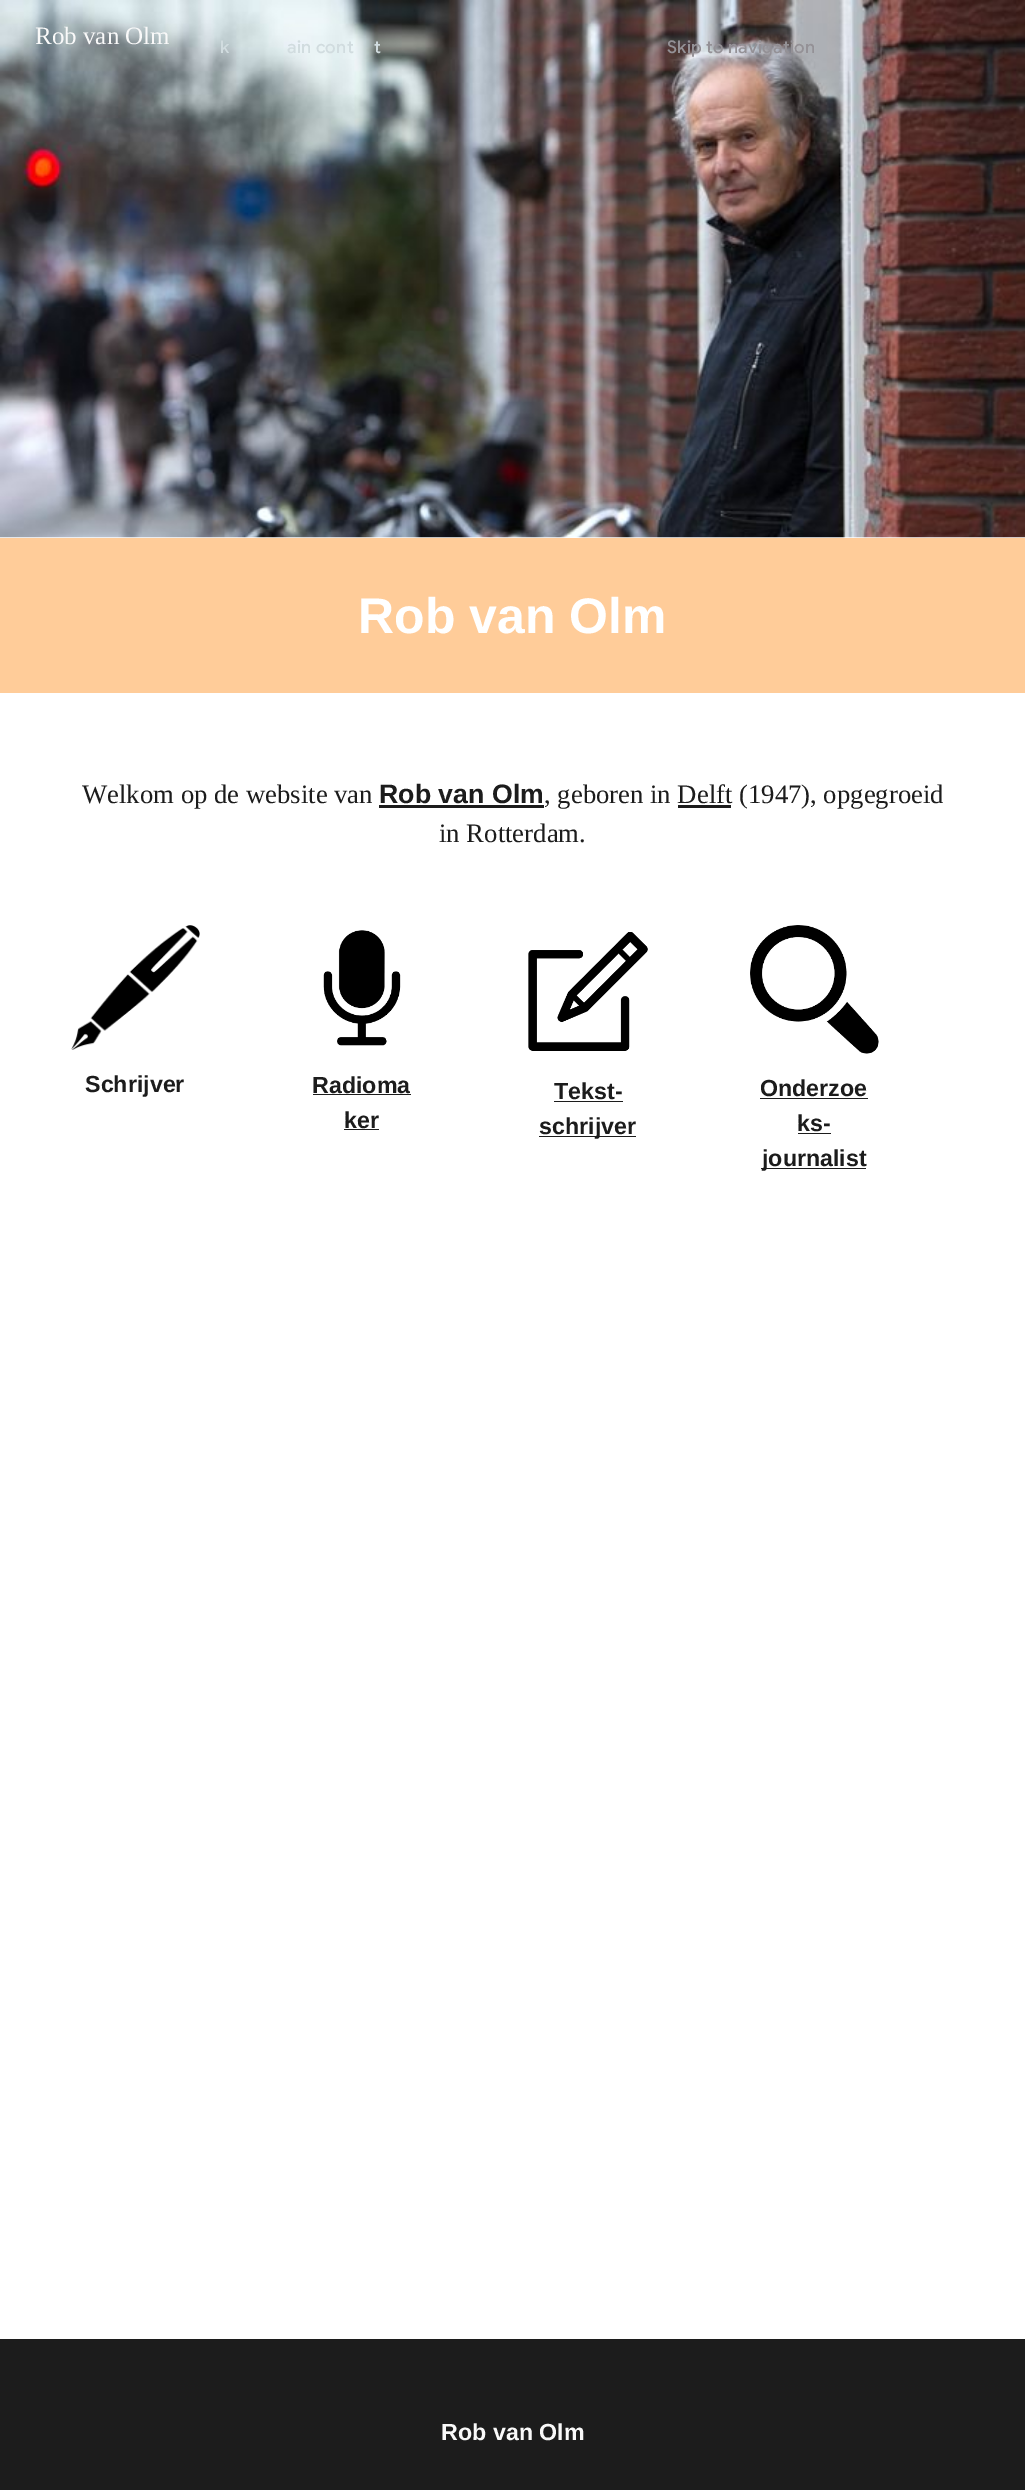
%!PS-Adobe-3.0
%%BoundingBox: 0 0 1025 2490
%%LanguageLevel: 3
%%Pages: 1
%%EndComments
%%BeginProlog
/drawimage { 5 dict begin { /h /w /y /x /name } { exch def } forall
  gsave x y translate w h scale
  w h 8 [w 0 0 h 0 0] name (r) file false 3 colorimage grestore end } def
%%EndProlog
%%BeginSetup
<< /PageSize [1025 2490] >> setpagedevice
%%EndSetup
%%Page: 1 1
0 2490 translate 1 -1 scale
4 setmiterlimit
1 setgray
0 0 1025 2490 rectfill
(images/1.raw) 0 0 1025 538 drawimage
1 0.8 0.6 setrgbcolor
0 538 1025 155 rectfill
0.11 setgray
379 805 165 3 rectfill
678 805 53 3 rectfill
(images/2.raw) 71 925 129 125 drawimage
(images/3.raw) 323 930 78 116 drawimage
313 1094 98 1 rectfill
344 1129 35 1 rectfill
(images/4.raw) 528 932 120 119 drawimage
554 1101 69 1 rectfill
539 1136 97 1 rectfill
(images/5.raw) 750 925 129 129 drawimage
760 1098 108 1 rectfill
798 1133 33 1 rectfill
761 1168 105 1 rectfill
0 2339 1025 151 rectfill
/LiberationSerif-Regular [25 0 0 -25 0 0] selectfont
0.976 setgray
35 44 moveto (Rob van Olm) show
/LiberationSans-Bold [50 0 0 -50 0 0] selectfont
1 setgray
358 633 moveto (Rob van Olm) show
/LiberationSerif-Regular [26.7 0 0 -26.7 0 0] selectfont
0.11 setgray
82 803 moveto (Welkom op de website van) show
/LiberationSans-Bold [26.7 0 0 -26.7 0 0] selectfont
379 803 moveto (Rob van Olm) show
/LiberationSerif-Regular [26.7 0 0 -26.7 0 0] selectfont
544 803 moveto (, geboren in Delft \(1947\), opgegroeid) show
439 842 moveto (in Rotterdam.) show
/LiberationSans-Bold [23.25 0 0 -23.25 0 0] selectfont
85 1092 moveto (Schrijver) show
312 1093 moveto (Radioma) show
344 1128 moveto (ker) show
554 1099 moveto (Tekst-) show
539 1134 moveto (schrijver) show
760 1096 moveto (Onderzoe) show
797 1131 moveto (ks-) show
762 1166 moveto (journalist) show
0.976 setgray
441 2440 moveto (Rob van Olm) show
/GoogleSans-Medium [17.5 0 0 -17.5 0 0] selectfont
0.82 0.863 0.875 setrgbcolor
220 53 moveto 0.2 0 (k) ashow
287 53 moveto 0.2 0 (ain cont) ashow
374 53 moveto 0.2 0 (t) ashow
0.58 0.569 0.588 setrgbcolor
667 53 moveto 0.2 0 (Skip to navigation) ashow
showpage
%%EOF
